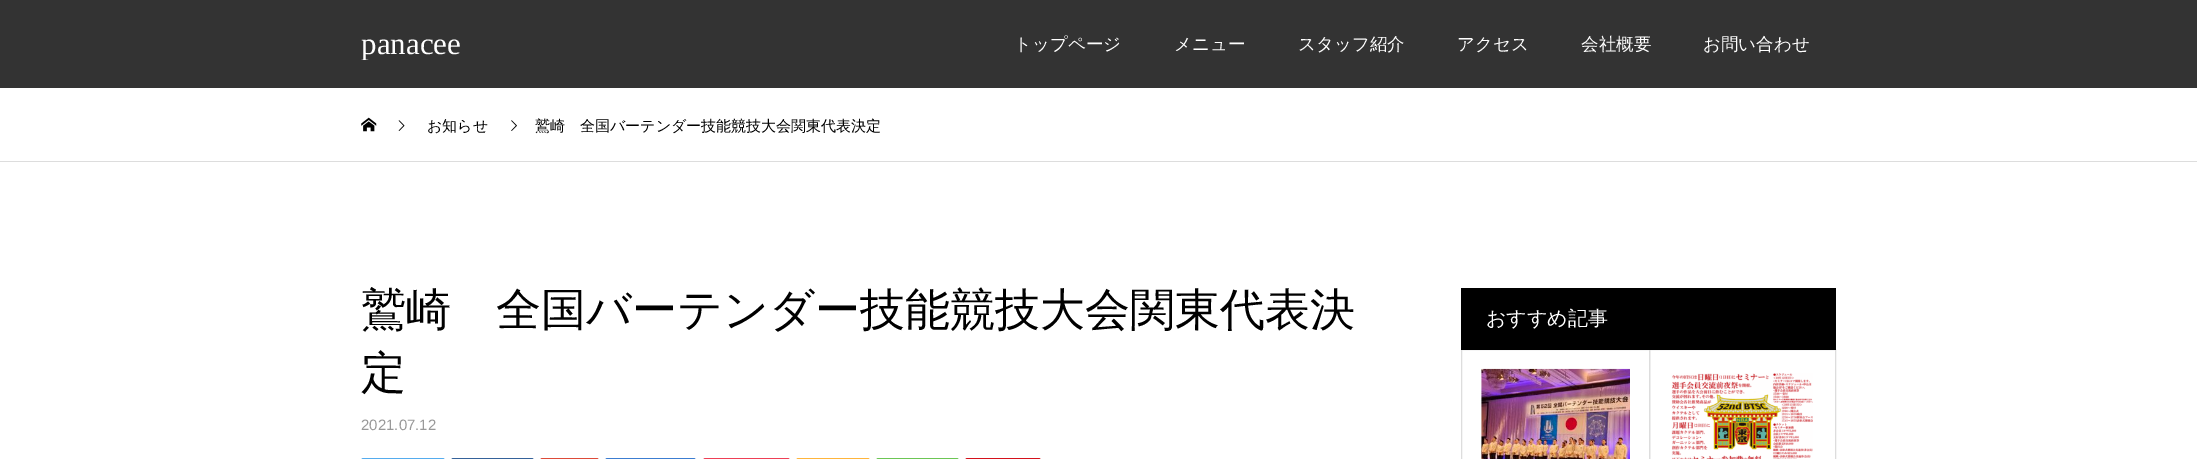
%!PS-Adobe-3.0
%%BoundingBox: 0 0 2197 459
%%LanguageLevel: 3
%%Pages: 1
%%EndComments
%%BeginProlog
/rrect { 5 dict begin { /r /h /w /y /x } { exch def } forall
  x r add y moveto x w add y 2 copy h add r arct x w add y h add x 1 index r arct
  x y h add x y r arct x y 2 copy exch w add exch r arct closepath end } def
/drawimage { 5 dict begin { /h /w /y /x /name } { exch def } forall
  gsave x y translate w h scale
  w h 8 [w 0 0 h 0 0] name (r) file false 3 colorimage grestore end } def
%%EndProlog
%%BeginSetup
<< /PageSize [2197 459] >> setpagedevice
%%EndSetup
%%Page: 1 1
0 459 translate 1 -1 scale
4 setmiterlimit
1 setgray
0 0 2197 459 rectfill
0.2 setgray
0 0 2197 88 rectfill
0.867 setgray
0 161 2197 1 rectfill
(images/1.raw) 361 117 16 15 drawimage
(images/2.raw) 398 120 7 11 drawimage
(images/3.raw) 511 120 6 11 drawimage
0.333 0.675 0.933 setrgbcolor
361 458 84 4 2.5 rrect fill
0.208 0.384 0.604 setrgbcolor
451 458 83 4 2.5 rrect fill
0.867 0.294 0.224 setrgbcolor
540 458 59 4 2.5 rrect fill
0.235 0.49 0.82 setrgbcolor
605 458 91 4 2.5 rrect fill
0.933 0.251 0.337 setrgbcolor
703 458 87 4 2.5 rrect fill
1 0.71 0.235 setrgbcolor
796 458 74 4 2.5 rrect fill
0.424 0.776 0.333 setrgbcolor
876 458 83 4 2.5 rrect fill
0.831 0.071 0.11 setrgbcolor
965 458 76 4 2.5 rrect fill
0.867 setgray
1461.5 349.5 188 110 rectstroke
1649.5 349.5 186 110 rectstroke
0 setgray
1461 288 375 62 rectfill
(images/4.raw) 1481 368 149 91 drawimage
(images/5.raw) 1671 373 142 86 drawimage
gsave
361 29 100 31 rectclip
/LiberationSerif-Regular [31 0 0 -31 0 0] selectfont
1 setgray
361 54 moveto (panacee) show
grestore
/WenQuanYiZenHei-Medium [17.5 0 0 -17.5 0 0] selectfont
1 setgray
1014 50 moveto (トップページ) show
1174 50 moveto (メニュー) show
1298 50 moveto (スタッフ紹介) show
1457 50 moveto (アクセス) show
1581 50 moveto (会社概要) show
1703 50 moveto (お問い合わせ) show
/WenQuanYiZenHei-Medium [15 0 0 -15 0 0] selectfont
0 setgray
427 131 moveto (お知らせ) show
535 131 moveto (鷲崎　全国バーテンダー技能競技大会関東代表決定) show
/WenQuanYiZenHei-Medium [45 0 0 -45 0 0] selectfont
361 325 moveto (鷲崎　全国バーテンダー技能競技大会関東代表決) show
361 388 moveto (定) show
/LiberationSans-Regular [15 0 0 -15 0 0] selectfont
0.6 setgray
361 430 moveto (2021.07.12) show
/WenQuanYiZenHei-Medium [20 0 0 -20 0 0] selectfont
1 setgray
1486 325 moveto (おすすめ記事) show
showpage
%%EOF
